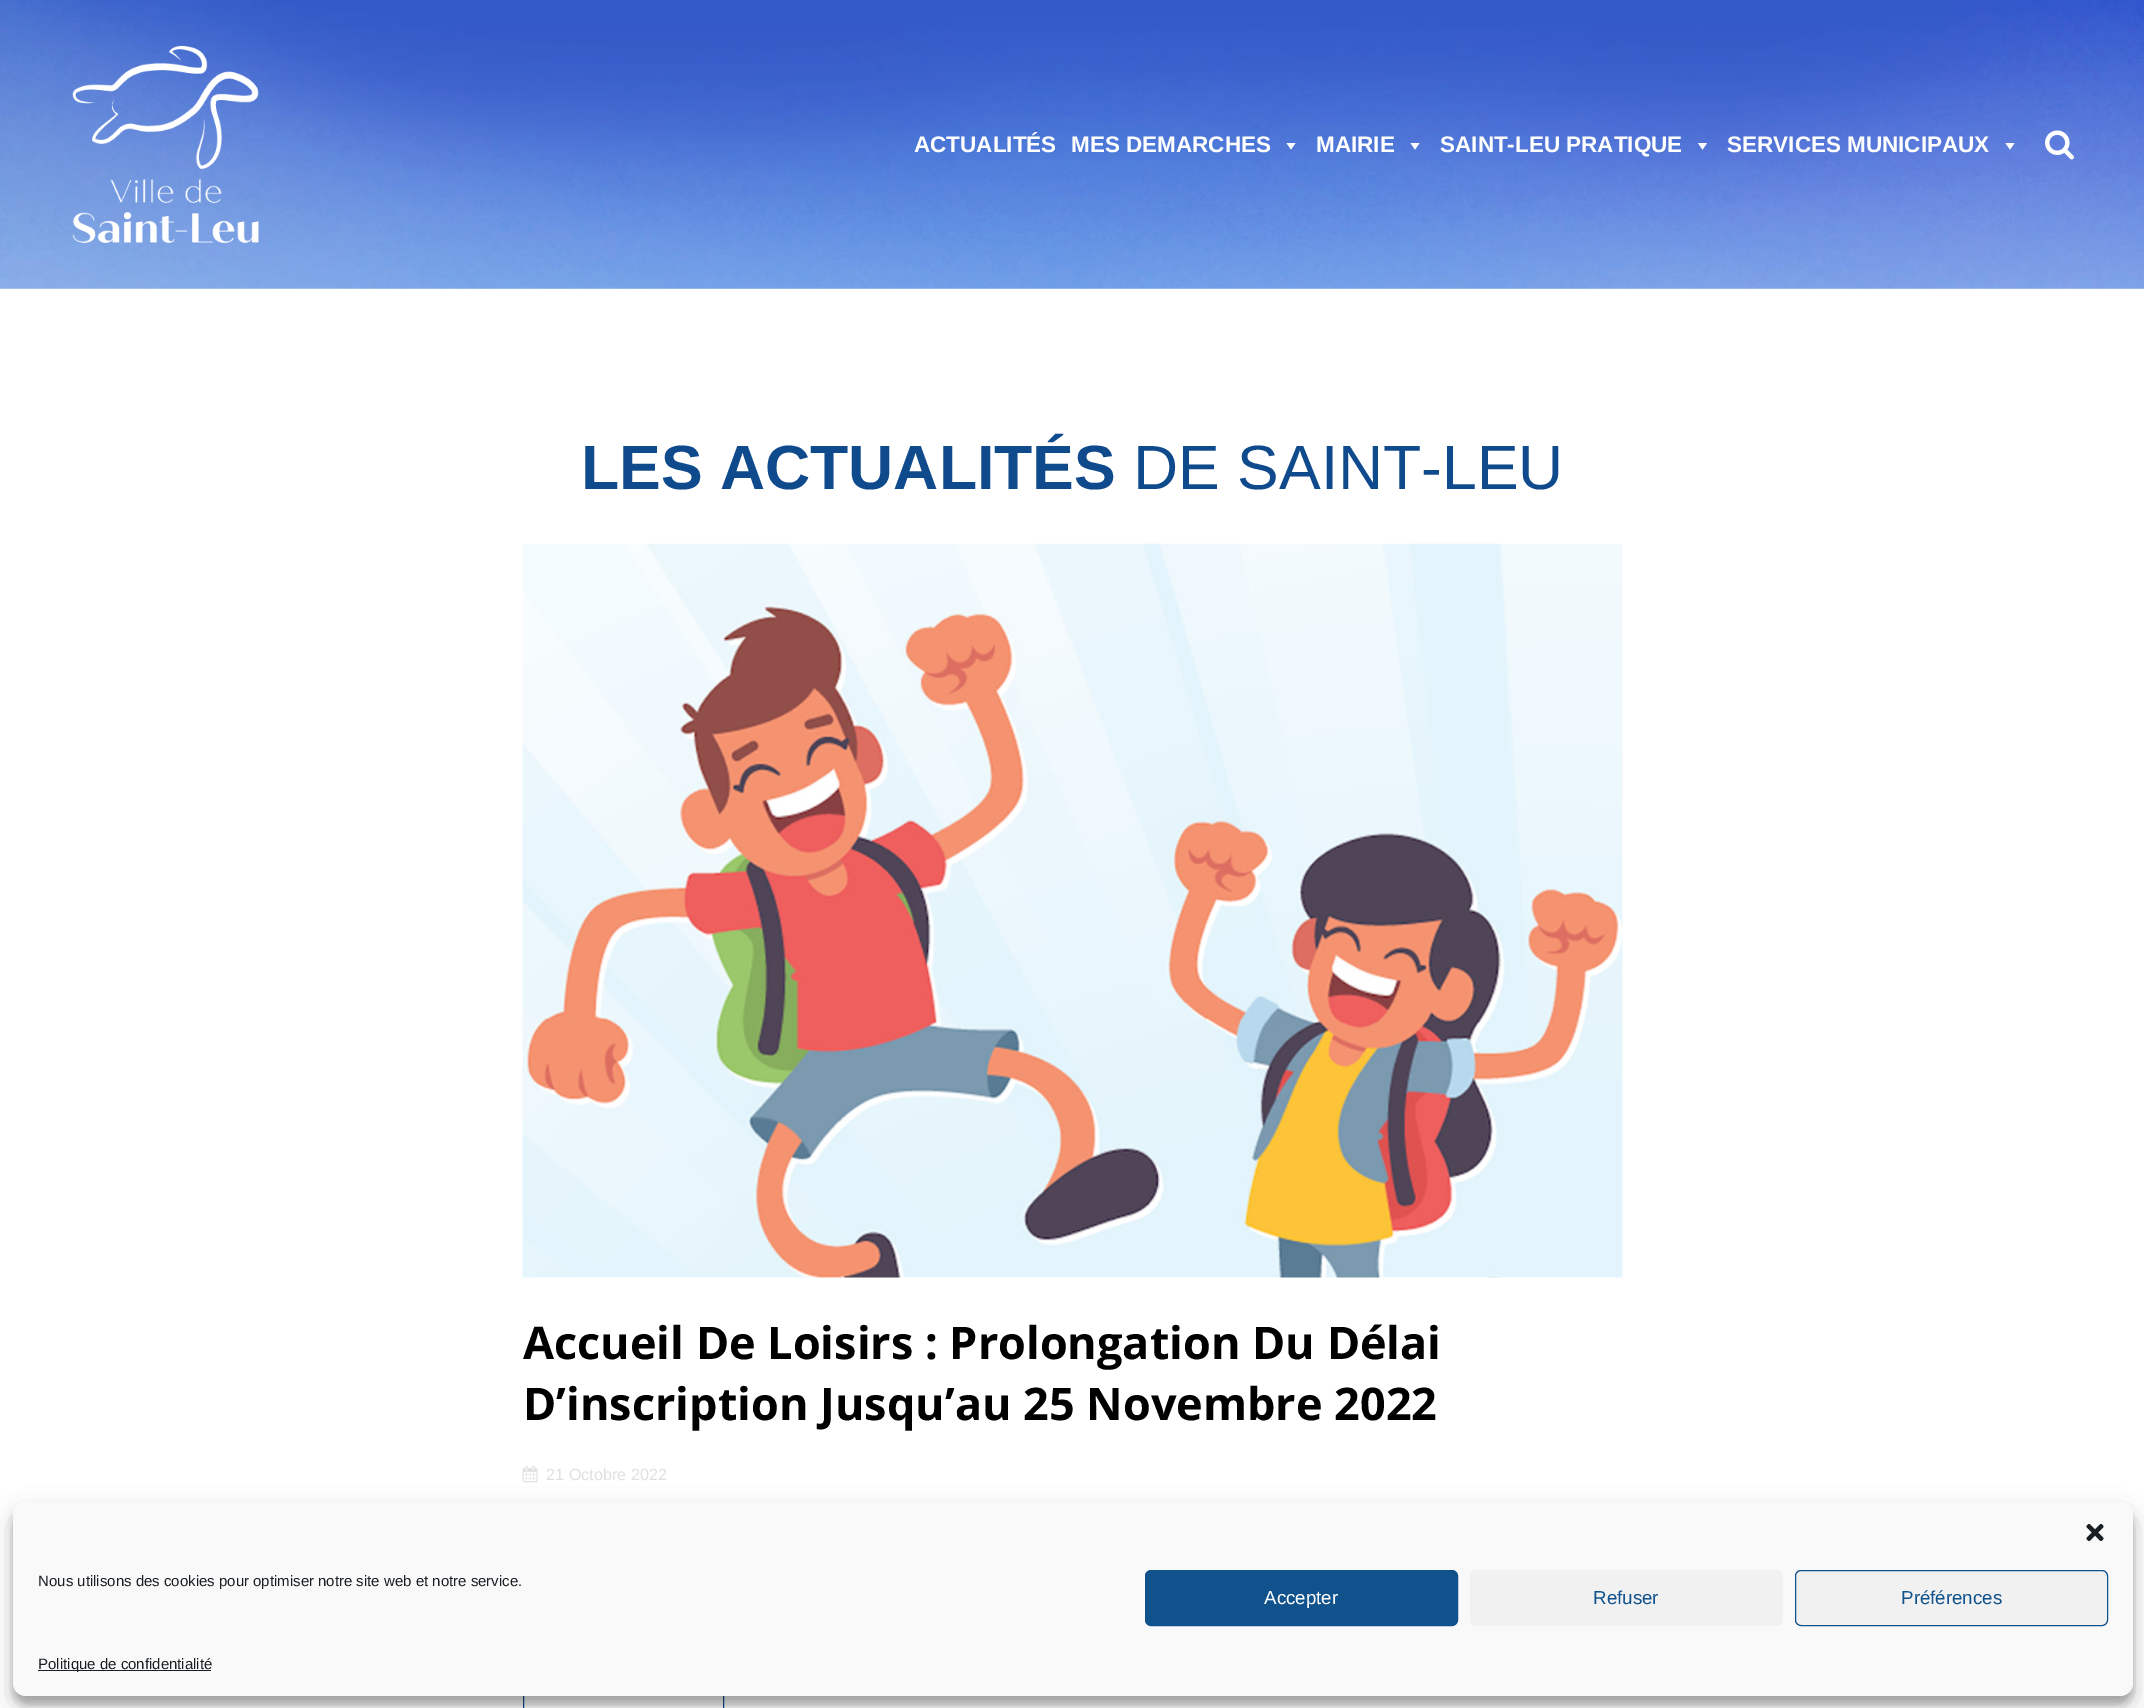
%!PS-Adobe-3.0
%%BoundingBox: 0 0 2144 1708
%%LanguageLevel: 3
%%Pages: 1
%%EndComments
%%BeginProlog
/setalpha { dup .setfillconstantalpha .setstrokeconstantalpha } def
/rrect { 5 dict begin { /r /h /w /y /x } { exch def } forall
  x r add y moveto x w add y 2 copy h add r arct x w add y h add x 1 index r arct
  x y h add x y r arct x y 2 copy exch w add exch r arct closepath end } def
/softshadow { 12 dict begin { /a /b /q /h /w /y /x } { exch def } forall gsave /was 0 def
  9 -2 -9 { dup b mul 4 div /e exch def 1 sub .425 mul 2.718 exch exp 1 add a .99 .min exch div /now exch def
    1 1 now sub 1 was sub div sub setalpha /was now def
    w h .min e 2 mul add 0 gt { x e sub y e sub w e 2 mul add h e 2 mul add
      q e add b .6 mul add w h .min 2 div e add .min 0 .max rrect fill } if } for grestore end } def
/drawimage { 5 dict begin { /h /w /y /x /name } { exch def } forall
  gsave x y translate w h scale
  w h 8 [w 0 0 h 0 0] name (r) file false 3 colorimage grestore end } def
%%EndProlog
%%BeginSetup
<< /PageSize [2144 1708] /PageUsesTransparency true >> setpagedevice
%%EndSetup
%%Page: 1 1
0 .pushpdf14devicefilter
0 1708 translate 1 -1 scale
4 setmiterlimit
1 setgray
0 0 2144 1708 rectfill
(images/1.raw) 0 0 2144 289 drawimage
(images/2.raw) 72 45 187 198 drawimage
newpath 1295.5 143 moveto 1291 149.5 lineto 1286.5 143 lineto closepath fill
newpath 1419.5 143 moveto 1415 149.5 lineto 1410.5 143 lineto closepath fill
newpath 1707 143 moveto 1702.5 149.5 lineto 1698 143 lineto closepath fill
newpath 2014.5 143 moveto 2010 149.5 lineto 2005.5 143 lineto closepath fill
(images/3.raw) 2045 130 29 30 drawimage
(images/4.raw) 522 543 1101 735 drawimage
(images/5.raw) 522 1466 16 17 drawimage
0.059 0.29 0.553 setrgbcolor
523.5 1689.5 200 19 rectstroke
0 setgray
13 1509 2120 195 13 4 0.23 softshadow
13 1514 2120 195 13 12.5 0.19 softshadow
0.976 setgray
13 1501 2120 195 13 rrect fill
(images/6.raw) 2086 1523 18 18 drawimage
0.063 0.322 0.549 setrgbcolor
1145.5 1570.5 312 55 5.5 rrect gsave fill grestore
stroke
0.945 setgray
1470 1570 313 56 6 rrect fill
1795.5 1570.5 312 55 5.5 rrect gsave fill grestore
0.063 0.322 0.549 setrgbcolor
stroke
0.098 0.118 0.137 setrgbcolor
38 1670 173 1 rectfill
/LiberationSans-Bold [22.5 0 0 -22.5 0 0] selectfont
1 setgray
914 152 moveto (ACTUALITÉS) show
1071 152 moveto (MES DEMARCHES) show
1316 152 moveto (MAIRIE) show
1440 152 moveto (SAINT-LEU PRATIQUE) show
1727 152 moveto (SERVICES MUNICIPAUX) show
/LiberationSans-Bold [62.5 0 0 -62.5 0 0] selectfont
0.059 0.29 0.553 setrgbcolor
581 489 moveto (LES ACTUALITÉS) show
/LiberationSans-Regular [62.5 0 0 -62.5 0 0] selectfont
1133 489 moveto (DE SAINT-LEU) show
/OpenSans-Bold [45 0 0 -45 0 0] selectfont
0 setgray
523 1359 moveto (Accueil De Loisirs : Prolongation Du Délai) show
523 1420 moveto (D’inscription Jusqu’au 25 Novembre 2022) show
/LiberationSans-Regular [16.25 0 0 -16.25 0 0] selectfont
0.878 setgray
546 1480 moveto (21 Octobre 2022) show
/LiberationSans-Regular [15 0 0 -15 0 0] selectfont
0.098 0.118 0.137 setrgbcolor
38 1586 moveto (Nous utilisons des cookies pour optimiser notre site web et notre service.) show
/LiberationSans-Regular [18.75 0 0 -18.75 0 0] selectfont
1 setgray
1264 1604 moveto (Accepter) show
0.063 0.322 0.549 setrgbcolor
1593 1604 moveto (Refuser) show
1901 1604 moveto (Préférences) show
/LiberationSans-Regular [15 0 0 -15 0 0] selectfont
0.098 0.118 0.137 setrgbcolor
38 1669 moveto (Politique de confidentialité) show
.poppdf14devicefilter showpage
%%EOF
